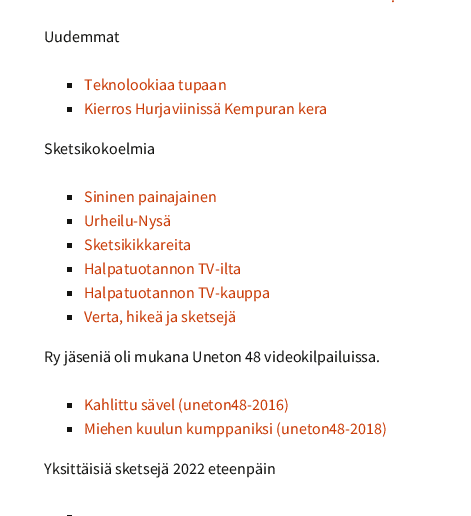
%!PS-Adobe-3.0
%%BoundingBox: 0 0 471 516
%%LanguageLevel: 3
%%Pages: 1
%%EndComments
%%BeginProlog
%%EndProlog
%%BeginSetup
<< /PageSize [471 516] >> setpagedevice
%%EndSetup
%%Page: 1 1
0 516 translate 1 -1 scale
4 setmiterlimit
1 setgray
0 0 471 516 rectfill
0.078 0.078 0.071 setrgbcolor
67 83 5 5 rectfill
67 107 5 5 rectfill
67 195 5 5 rectfill
67 219 5 5 rectfill
67 243 5 5 rectfill
67 267 5 5 rectfill
67 291 5 5 rectfill
67 315 5 5 rectfill
67 403 5 5 rectfill
67 427 5 5 rectfill
67 515 5 1 rectfill
/SourceSansPro-Regular [16 0 0 -16 0 0] selectfont
0.792 0.235 0.031 setrgbcolor
391 2 moveto (.) show
0.078 0.078 0.071 setrgbcolor
44 42 moveto (Uudemmat) show
0.792 0.235 0.031 setrgbcolor
84 90 moveto (Teknolookiaa tupaan) show
84 114 moveto (Kierros Hurjaviinissä Kempuran kera) show
0.078 0.078 0.071 setrgbcolor
44 154 moveto (Sketsikokoelmia) show
0.792 0.235 0.031 setrgbcolor
84 202 moveto (Sininen painajainen) show
84 226 moveto (Urheilu-Nysä) show
84 250 moveto (Sketsikikkareita) show
84 274 moveto (Halpatuotannon TV-ilta) show
84 298 moveto (Halpatuotannon TV-kauppa) show
84 322 moveto (Verta, hikeä ja sketsejä) show
0.078 0.078 0.071 setrgbcolor
44 362 moveto (Ry jäseniä oli mukana Uneton 48 videokilpailuissa.) show
0.792 0.235 0.031 setrgbcolor
84 410 moveto (Kahlittu sävel \(uneton48-2016\)) show
84 434 moveto (Miehen kuulun kumppaniksi \(uneton48-2018\)) show
0.078 0.078 0.071 setrgbcolor
44 474 moveto (Yksittäisiä sketsejä 2022 eteenpäin) show
showpage
%%EOF
